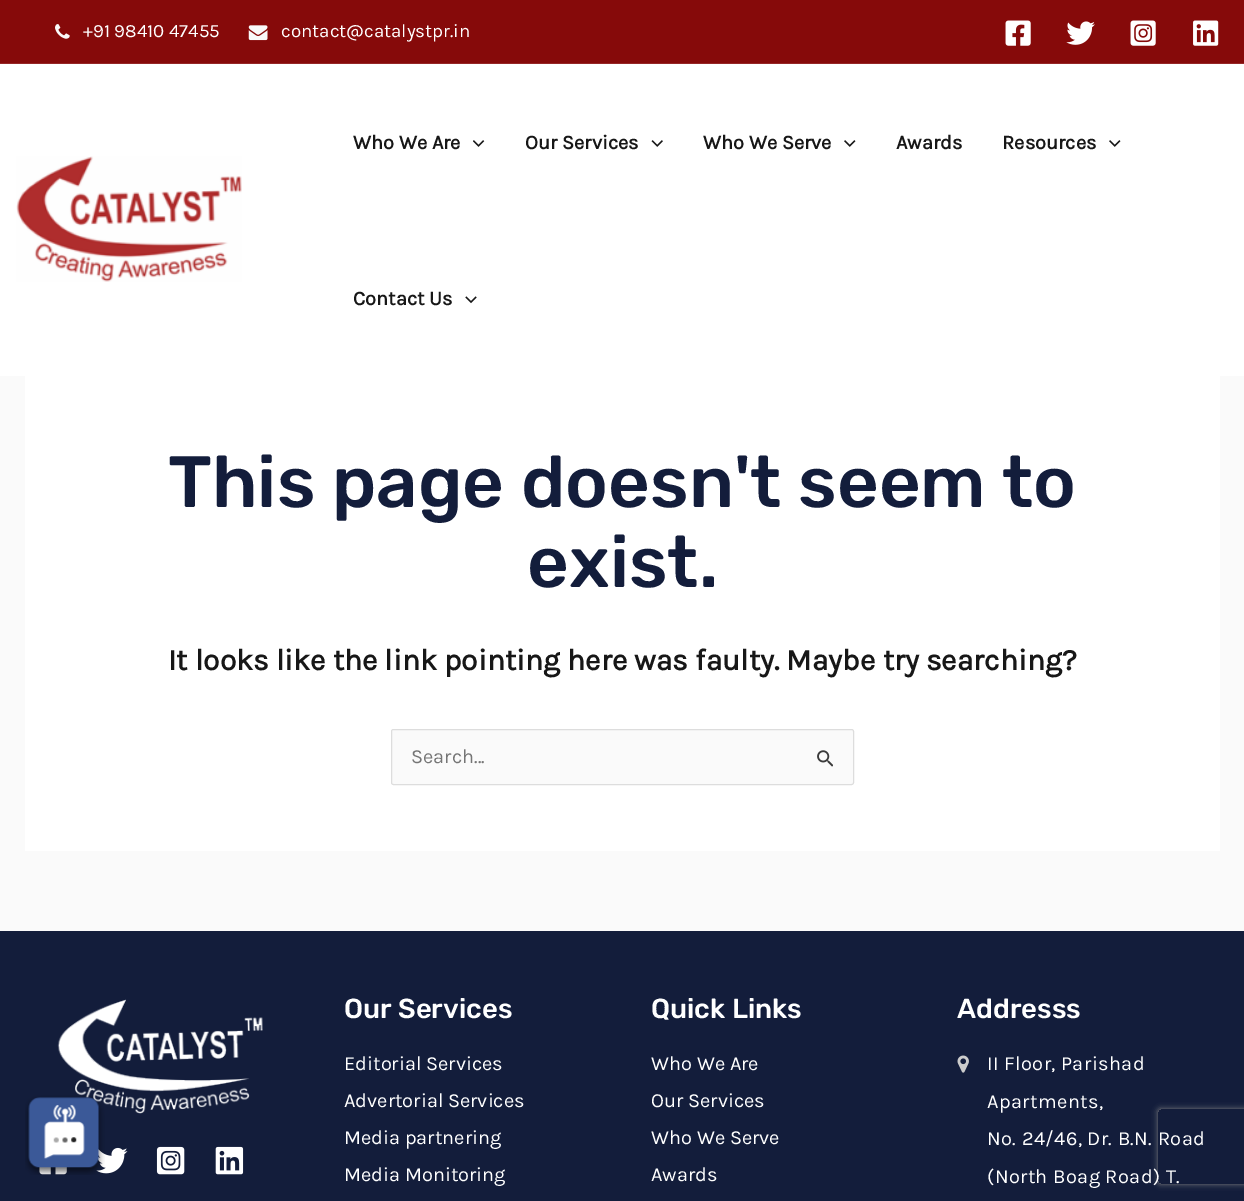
%!PS-Adobe-3.0
%%BoundingBox: 0 0 1244 1201
%%LanguageLevel: 3
%%Pages: 1
%%EndComments
%%BeginProlog
/setalpha { dup .setfillconstantalpha .setstrokeconstantalpha } def
/rrect { 5 dict begin { /r /h /w /y /x } { exch def } forall
  x r add y moveto x w add y 2 copy h add r arct x w add y h add x 1 index r arct
  x y h add x y r arct x y 2 copy exch w add exch r arct closepath end } def
/softshadow { 12 dict begin { /a /b /q /h /w /y /x } { exch def } forall gsave /was 0 def
  9 -2 -9 { dup b mul 4 div /e exch def 1 sub .425 mul 2.718 exch exp 1 add a .99 .min exch div /now exch def
    1 1 now sub 1 was sub div sub setalpha /was now def
    w h .min e 2 mul add 0 gt { x e sub y e sub w e 2 mul add h e 2 mul add
      q e add b .6 mul add w h .min 2 div e add .min 0 .max rrect fill } if } for grestore end } def
/drawimage { 5 dict begin { /h /w /y /x /name } { exch def } forall
  gsave x y translate w h scale
  w h 8 [w 0 0 h 0 0] name (r) file false 3 colorimage grestore end } def
%%EndProlog
%%BeginSetup
<< /PageSize [1244 1201] /PageUsesTransparency true >> setpagedevice
%%EndSetup
%%Page: 1 1
0 .pushpdf14devicefilter
0 1201 translate 1 -1 scale
4 setmiterlimit
0.98 setgray
0 0 1244 1201 rectfill
0.075 0.114 0.231 setrgbcolor
0 931 1244 270 rectfill
(images/14.raw) 57 999 206 115 drawimage
(images/15.raw) 39 1167 28 8 drawimage
(images/16.raw) 96 1147 32 27 drawimage
(images/1.raw) 25 1095 80 80 drawimage
0.525 0.039 0.039 setrgbcolor
0 0 1244 63 rectfill
0.584 0.153 0.153 setrgbcolor
0 63 1244 1 rectfill
(images/2.raw) 55 24 15 15 drawimage
(images/3.raw) 248 25 20 16 drawimage
(images/4.raw) 1005 20 26 26 drawimage
(images/5.raw) 1066 21 29 24 drawimage
(images/6.raw) 1130 20 26 26 drawimage
(images/7.raw) 1193 20 26 26 drawimage
1 setgray
0 64 1244 312 rectfill
(images/8.raw) 16 156 226 126 drawimage
(images/9.raw) 473 140 12 7 drawimage
(images/10.raw) 651 140 12 7 drawimage
(images/11.raw) 844 140 12 7 drawimage
(images/11.raw) 1109 140 12 7 drawimage
(images/12.raw) 465 296 12 8 drawimage
25 376 1195 475 rectfill
0.98 setgray
391.5 729.5 462 55 2 rrect gsave fill grestore
0.867 setgray
stroke
(images/13.raw) 817 750 16 17 drawimage
(images/17.raw) 156 1146 29 29 drawimage
(images/18.raw) 215 1146 29 29 drawimage
(images/19.raw) 957 1055 12 18 drawimage
gsave
newpath 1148 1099 moveto 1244 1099 lineto 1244 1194 lineto 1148 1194 lineto closepath 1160.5 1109 moveto 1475.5 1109 lineto 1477 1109 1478 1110 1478 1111.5 curveto 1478 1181.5 lineto 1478 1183 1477 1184 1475.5 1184 curveto 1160.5 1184 lineto 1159 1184 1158 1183 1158 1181.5 curveto 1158 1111.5 lineto 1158 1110 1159 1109 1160.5 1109 curveto closepath eoclip newpath
0.502 setgray
1158 1109 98 75 2.5 3 1 softshadow
grestore
/Karla-Regular [18.75 0 0 -18.75 0 0] selectfont
1 setgray
83 37 moveto (+91 98410 47455) show
281 37 moveto (contact@catalystpr.in) show
/Karla-Bold [20 0 0 -20 0 0] selectfont
0.09 setgray
353 149 moveto (Who We Are) show
525 149 moveto (Our Services) show
703 149 moveto (Who We Serve) show
896 149 moveto (Awards) show
1002 149 moveto (Resources) show
353 305 moveto (Contact Us) show
/Rubik-Medium [72.5 0 0 -72.5 0 0] selectfont
0.075 0.114 0.231 setrgbcolor
168 507 moveto (This page doesn't seem to) show
527 587 moveto (exist.) show
/Karla-Bold [30 0 0 -30 0 0] selectfont
0.09 setgray
168 670 moveto (It looks like the link pointing here was faulty. Maybe try searching?) show
/Karla-Regular [20 0 0 -20 0 0] selectfont
0.459 setgray
411 763 moveto (Search...) show
/Rubik-Medium [27.5 0 0 -27.5 0 0] selectfont
1 setgray
344 1018 moveto (Our Services) show
/Karla-Regular [20 0 0 -20 0 0] selectfont
344 1070 moveto (Editorial Services) show
344 1107 moveto (Advertorial Services) show
344 1144 moveto (Media partnering) show
344 1181 moveto (Media Monitoring) show
/Rubik-Medium [27.5 0 0 -27.5 0 0] selectfont
651 1018 moveto (Quick Links) show
/Karla-Regular [20 0 0 -20 0 0] selectfont
651 1070 moveto (Who We Are) show
651 1107 moveto (Our Services) show
651 1144 moveto (Who We Serve) show
651 1181 moveto (Awards) show
/Rubik-Medium [27.5 0 0 -27.5 0 0] selectfont
957 1018 moveto (Addresss) show
/Karla-Regular [20 0 0 -20 0 0] selectfont
987 1070 moveto 0.4 0 (II Floor, Parishad) ashow
987 1108 moveto 0.4 0 (Apartments,) ashow
987 1145 moveto 0.4 0 (No. 24/46, Dr. B.N. Road) ashow
987 1183 moveto 0.4 0 (\(North Boag Road\) T.) ashow
.poppdf14devicefilter showpage
%%EOF
